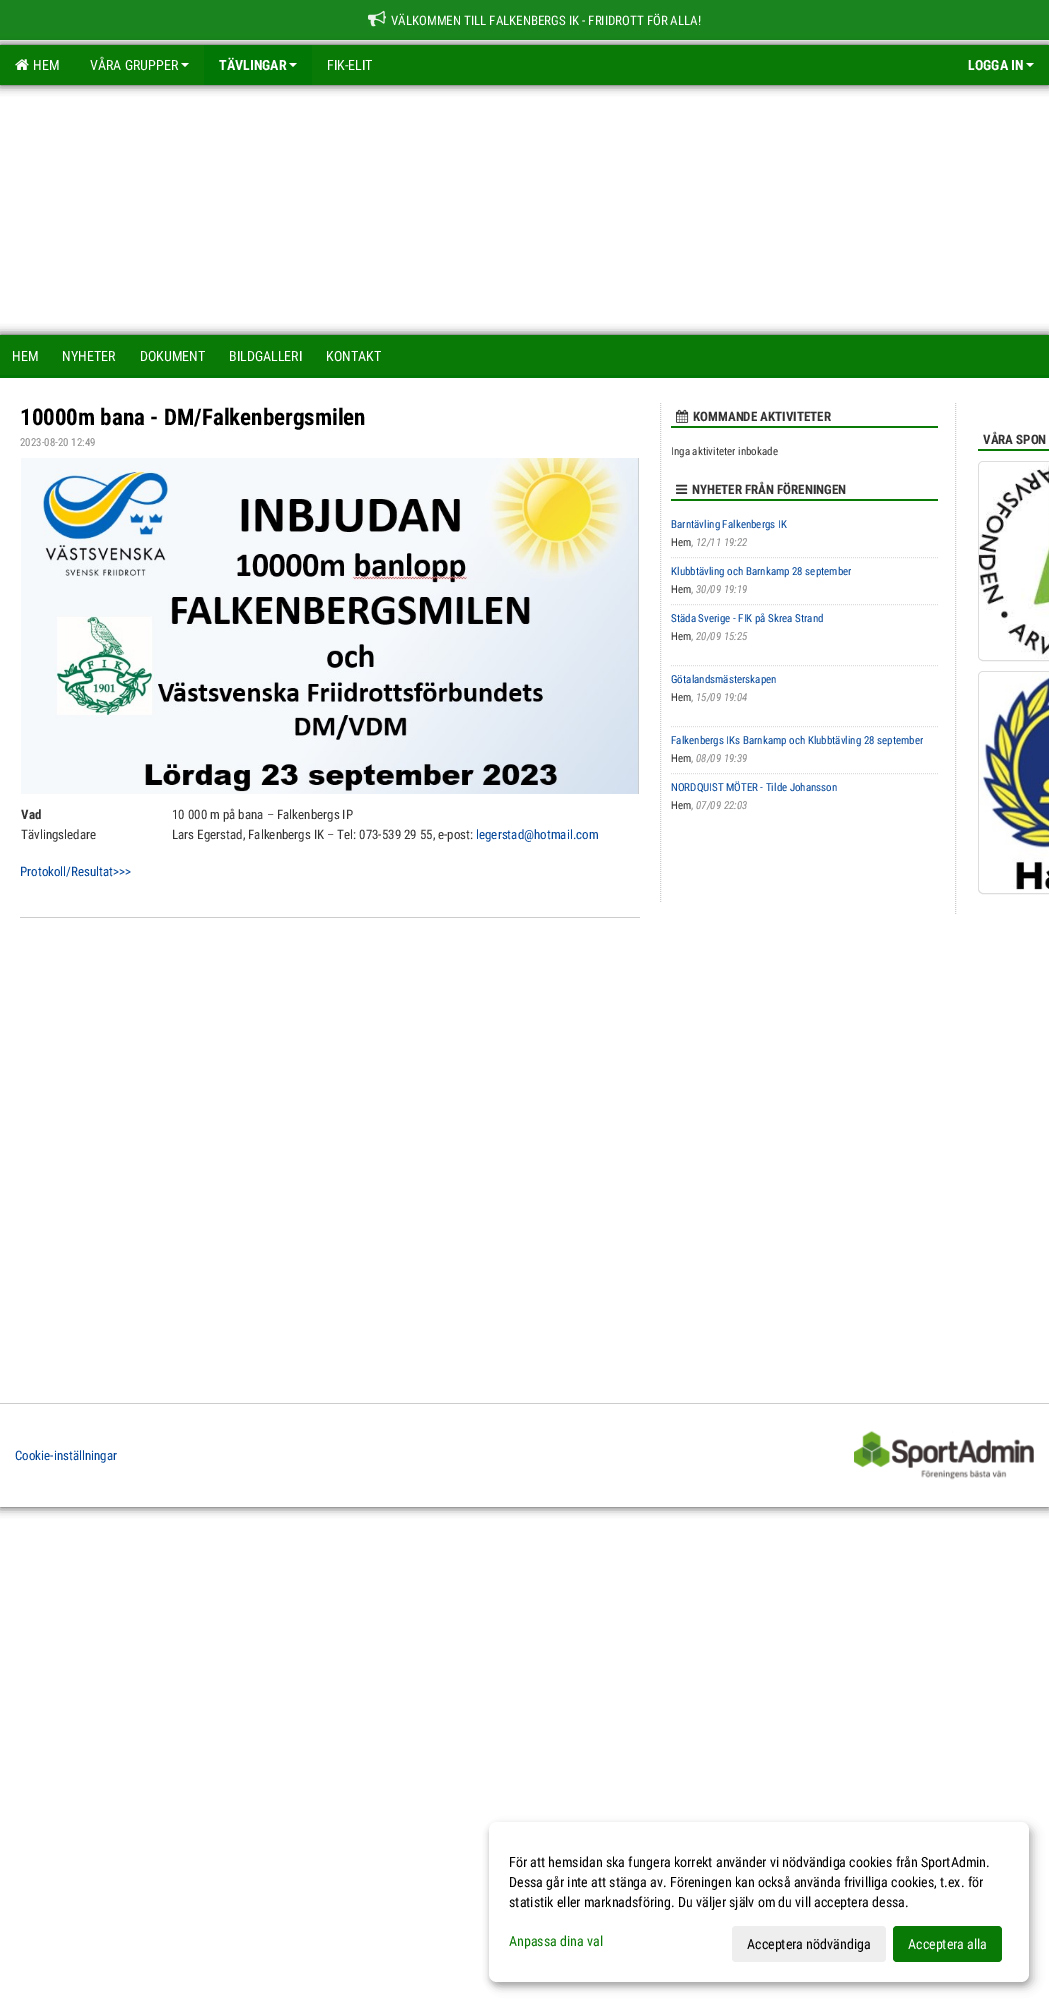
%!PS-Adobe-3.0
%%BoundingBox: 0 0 1049 2002
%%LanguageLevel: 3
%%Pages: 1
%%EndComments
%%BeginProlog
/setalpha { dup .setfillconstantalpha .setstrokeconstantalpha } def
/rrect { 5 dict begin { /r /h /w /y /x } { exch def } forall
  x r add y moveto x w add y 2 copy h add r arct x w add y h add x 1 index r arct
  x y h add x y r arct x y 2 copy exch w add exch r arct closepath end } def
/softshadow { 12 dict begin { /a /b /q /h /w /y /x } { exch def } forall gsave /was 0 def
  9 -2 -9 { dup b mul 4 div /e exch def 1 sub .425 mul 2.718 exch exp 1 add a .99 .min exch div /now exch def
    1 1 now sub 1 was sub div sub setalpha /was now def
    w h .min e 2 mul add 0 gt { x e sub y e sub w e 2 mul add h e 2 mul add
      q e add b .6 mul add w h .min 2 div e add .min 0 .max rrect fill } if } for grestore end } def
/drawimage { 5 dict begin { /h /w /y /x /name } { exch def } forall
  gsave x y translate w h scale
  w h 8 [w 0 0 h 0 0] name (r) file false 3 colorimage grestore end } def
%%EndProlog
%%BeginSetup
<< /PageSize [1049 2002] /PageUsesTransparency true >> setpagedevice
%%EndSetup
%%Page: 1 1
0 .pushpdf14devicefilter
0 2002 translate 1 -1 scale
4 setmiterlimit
1 setgray
0 0 1049 2002 rectfill
0.2 setgray
0 45 1049 40 0 5 1 softshadow
0.9 setalpha
0.004 0.471 0.02 setrgbcolor
0 0 1049 40 rectfill
1 setalpha
(images/1.raw) 368 10 18 17 drawimage
0.039 0.478 0.024 setrgbcolor
0 45 1049 40 rectfill
(images/2.raw) 15 59 14 11 drawimage
1 setgray
newpath 181 63 moveto 189 63 lineto 185 67 lineto closepath fill
0.004 0.471 0.02 setrgbcolor
204 45 108 40 rectfill
1 setgray
newpath 289 63 moveto 297 63 lineto 293 67 lineto closepath fill
newpath 1026 63 moveto 1034 63 lineto 1030 67 lineto closepath fill
gsave
newpath 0 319 moveto 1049 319 lineto 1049 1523 lineto 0 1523 lineto closepath 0 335 moveto 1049 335 lineto 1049 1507 lineto 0 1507 lineto closepath eoclip newpath
0.2 setgray
0 335 1049 1172 0 5 1 softshadow
grestore
0.039 0.478 0.024 setrgbcolor
0 335 1049 40 rectfill
0.004 0.471 0.02 setrgbcolor
0 375 1049 3 rectfill
(images/3.raw) 21 458 618 336 drawimage
0.8 setgray
20 917 620 1 rectfill
[1 1] 0 setdash
newpath 660.5 403 moveto 660.5 903 lineto stroke
0.039 0.478 0.024 setrgbcolor
671 426 267 2 rectfill
(images/4.raw) 676 409 13 14 drawimage
671 499 267 2 rectfill
(images/5.raw) 676 484 12 10 drawimage
0.867 setgray
newpath 671 557.5 moveto 938 557.5 lineto stroke
newpath 671 604.5 moveto 938 604.5 lineto stroke
newpath 671 665.5 moveto 938 665.5 lineto stroke
newpath 671 726.5 moveto 938 726.5 lineto stroke
newpath 671 773.5 moveto 938 773.5 lineto stroke
0.8 setgray
newpath 955.5 403 moveto 955.5 914 lineto stroke
0.039 0.478 0.024 setrgbcolor
978 449 71 2 rectfill
0.867 setgray
[] 0 setdash
978.5 461.5 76 199 4.5 rrect stroke
(images/6.raw) 979 462 70 197 drawimage
978.5 671.5 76 222 4.5 rrect stroke
(images/7.raw) 979 672 70 218 drawimage
0.8 setgray
0 1403 1049 1 rectfill
(images/8.raw) 854 1430 180 50 drawimage
0 setgray
494 1827 540 160 8 5 0.19 softshadow
489 1826 540 160 8 3 0.2 softshadow
1 setgray
489 1822 540 160 8 rrect fill
0.933 setgray
732 1926 154 36 4 rrect fill
0.039 0.478 0.024 setrgbcolor
893 1926 109 36 4 rrect fill
/RobotoCondensed-Regular [13 0 0 -13 0 0] selectfont
1 setgray
391 25 moveto (VÄLKOMMEN TILL FALKENBERGS IK - FRIIDROTT FÖR ALLA!) show
/RobotoCondensed-Regular [14 0 0 -14 0 0] selectfont
33 70 moveto (HEM) show
90 70 moveto (VÅRA GRUPPER) show
/RobotoCondensed-Bold [14 0 0 -14 0 0] selectfont
219 70 moveto (TÄVLINGAR) show
/RobotoCondensed-Regular [14 0 0 -14 0 0] selectfont
327 70 moveto (FIK-ELIT) show
/RobotoCondensed-Bold [14 0 0 -14 0 0] selectfont
968 70 moveto (LOGGA IN) show
/RobotoCondensed-Regular [14 0 0 -14 0 0] selectfont
12 361 moveto (HEM) show
62 361 moveto (NYHETER) show
140 361 moveto (DOKUMENT) show
229 361 moveto (BILDGALLERI) show
326 361 moveto (KONTAKT) show
/RobotoCondensed-Bold [23 0 0 -23 0 0] selectfont
0 setgray
20 425 moveto (10000m bana - DM/Falkenbergsmilen) show
/RobotoCondensed-Regular [11 0 0 -11 0 0] selectfont
0.533 setgray
20 446 moveto (2023-08-20 12:49) show
/RobotoCondensed-Bold [13 0 0 -13 0 0] selectfont
0.2 setgray
21 819 moveto (Vad) show
/RobotoCondensed-Regular [13 0 0 -13 0 0] selectfont
172 819 moveto (10 000 m på bana – Falkenbergs IP) show
21 839 moveto (Tävlingsledare) show
172 839 moveto (Lars Egerstad, Falkenbergs IK – Tel: 073-539 29 55, e-post:) show
0 0.267 0.6 setrgbcolor
476 839 moveto (legerstad@hotmail.com) show
20 876 moveto (Protokoll/Resultat>>>) show
/RobotoCondensed-Bold [13 0 0 -13 0 0] selectfont
0.2 setgray
693 421 moveto (KOMMANDE AKTIVITETER) show
/RobotoCondensed-Regular [11 0 0 -11 0 0] selectfont
671 455 moveto (Inga aktiviteter inbokade) show
/RobotoCondensed-Bold [13 0 0 -13 0 0] selectfont
692 494 moveto (NYHETER FRÅN FÖRENINGEN) show
/RobotoCondensed-Regular [11 0 0 -11 0 0] selectfont
0 0.267 0.6 setrgbcolor
671 528 moveto (Barntävling Falkenbergs IK) show
0.2 setgray
671 546 moveto (Hem) show
0.533 setgray
691 546 moveto (,) show
/RobotoCondensed-Italic [11 0 0 -11 0 0] selectfont
696 546 moveto (12/11 19:22) show
/RobotoCondensed-Regular [11 0 0 -11 0 0] selectfont
0 0.267 0.6 setrgbcolor
671 575 moveto (Klubbtävling och Barnkamp 28 september) show
0.2 setgray
671 593 moveto (Hem) show
0.533 setgray
691 593 moveto (,) show
/RobotoCondensed-Italic [11 0 0 -11 0 0] selectfont
696 593 moveto (30/09 19:19) show
/RobotoCondensed-Regular [11 0 0 -11 0 0] selectfont
0 0.267 0.6 setrgbcolor
671 622 moveto (Städa Sverige - FIK på Skrea Strand) show
0.2 setgray
671 640 moveto (Hem) show
0.533 setgray
691 640 moveto (,) show
/RobotoCondensed-Italic [11 0 0 -11 0 0] selectfont
696 640 moveto (20/09 15:25) show
/RobotoCondensed-Regular [11 0 0 -11 0 0] selectfont
0 0.267 0.6 setrgbcolor
671 683 moveto (Götalandsmästerskapen) show
0.2 setgray
671 701 moveto (Hem) show
0.533 setgray
691 701 moveto (,) show
/RobotoCondensed-Italic [11 0 0 -11 0 0] selectfont
696 701 moveto (15/09 19:04) show
/RobotoCondensed-Regular [11 0 0 -11 0 0] selectfont
0 0.267 0.6 setrgbcolor
671 744 moveto (Falkenbergs IKs Barnkamp och Klubbtävling 28 september) show
0.2 setgray
671 762 moveto (Hem) show
0.533 setgray
691 762 moveto (,) show
/RobotoCondensed-Italic [11 0 0 -11 0 0] selectfont
696 762 moveto (08/09 19:39) show
/RobotoCondensed-Regular [11 0 0 -11 0 0] selectfont
0 0.267 0.6 setrgbcolor
671 791 moveto (NORDQUIST MÖTER - Tilde Johansson) show
0.2 setgray
671 809 moveto (Hem) show
0.533 setgray
691 809 moveto (,) show
/RobotoCondensed-Italic [11 0 0 -11 0 0] selectfont
696 809 moveto (07/09 22:03) show
/RobotoCondensed-Bold [13 0 0 -13 0 0] selectfont
0.2 setgray
983 444 moveto (VÅRA SPON) show
/RobotoCondensed-Regular [13 0 0 -13 0 0] selectfont
0 0.267 0.6 setrgbcolor
15 1460 moveto (Cookie-inställningar) show
/RobotoCondensed-Regular [14 0 0 -14 0 0] selectfont
0 setgray
509 1867 moveto (För att hemsidan ska fungera korrekt använder vi nödvändiga cookies från SportAdmin.) show
509 1887 moveto (Dessa går inte att stänga av. Föreningen kan också använda frivilliga cookies, t.ex. för) show
509 1907 moveto (statistik eller marknadsföring. Du väljer själv om du vill acceptera dessa.) show
0.039 0.478 0.024 setrgbcolor
509 1946 moveto (Anpassa dina val) show
0 setgray
747 1949 moveto (Acceptera nödvändiga) show
1 setgray
908 1949 moveto (Acceptera alla) show
.poppdf14devicefilter showpage
%%EOF
